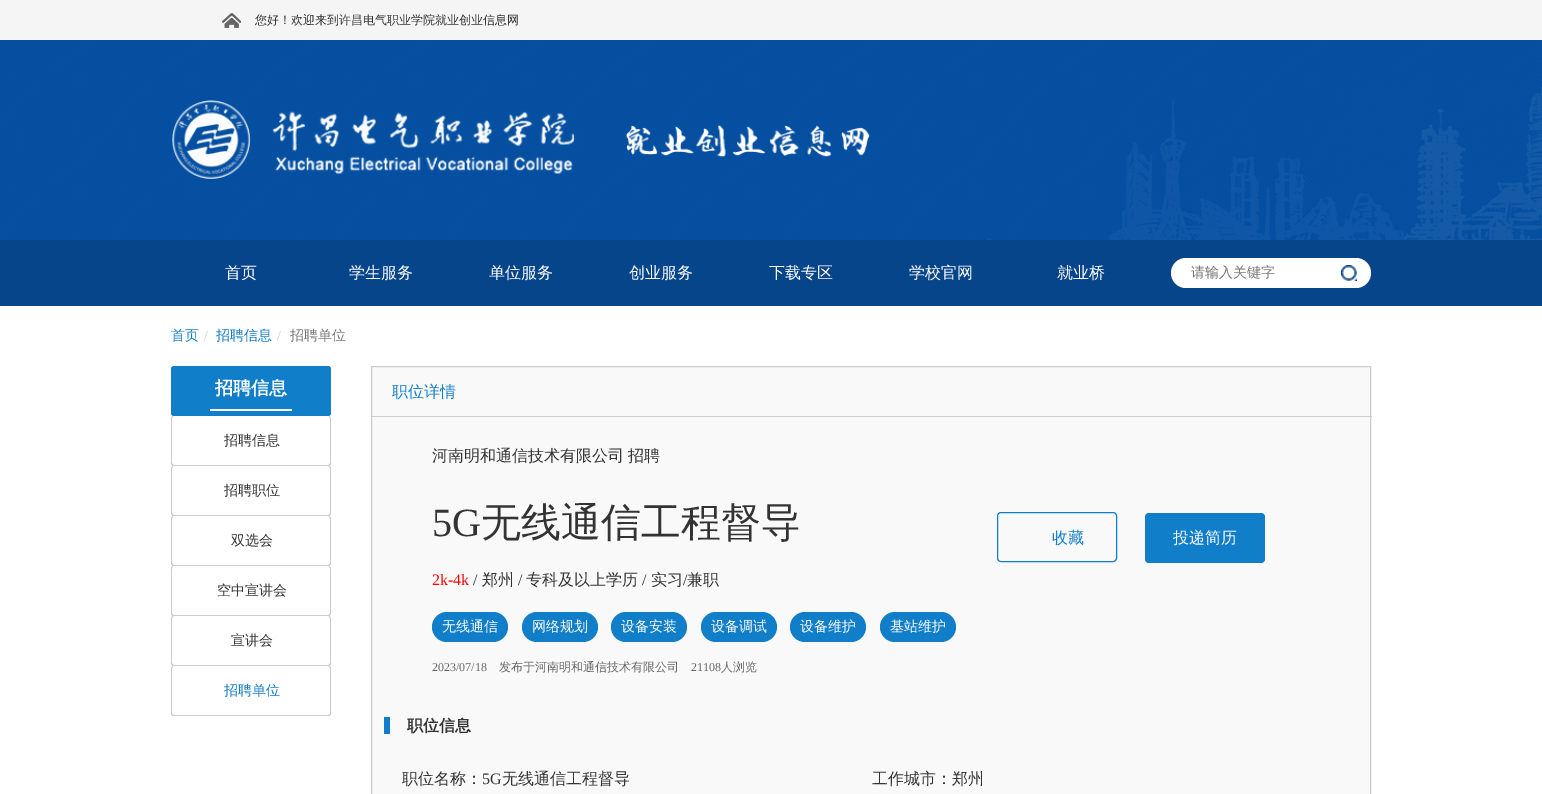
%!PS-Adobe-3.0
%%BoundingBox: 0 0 1542 794
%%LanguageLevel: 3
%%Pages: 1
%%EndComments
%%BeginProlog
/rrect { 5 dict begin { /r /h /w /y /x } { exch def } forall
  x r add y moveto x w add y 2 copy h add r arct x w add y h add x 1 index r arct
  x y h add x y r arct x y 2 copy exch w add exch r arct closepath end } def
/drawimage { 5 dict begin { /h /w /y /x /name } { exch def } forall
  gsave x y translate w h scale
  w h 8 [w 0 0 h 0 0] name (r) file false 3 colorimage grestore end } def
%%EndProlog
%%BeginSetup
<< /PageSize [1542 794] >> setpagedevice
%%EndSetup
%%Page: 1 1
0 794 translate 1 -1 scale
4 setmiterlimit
1 setgray
0 0 1542 794 rectfill
0.961 setgray
0 0 1542 40 rectfill
(images/1.raw) 222 13 19 15 drawimage
(images/2.raw) 0 40 1542 200 drawimage
(images/3.raw) 172 100 698 79 drawimage
0.024 0.271 0.541 setrgbcolor
0 240 1542 66 rectfill
1 setgray
1171 258 200 30 15 rrect fill
(images/4.raw) 1341 265 16 16 drawimage
0.063 0.494 0.788 setrgbcolor
171 366 160 50 3 rrect fill
1 setgray
210 409 82 2 rectfill
0.8 setgray
newpath 174 416 moveto 328 416 lineto 330 416 331 417 331 419 curveto 331 463 lineto 331 465 330 466 328 466 curveto 174 466 lineto 172 466 171 465 171 463 curveto 171 419 lineto 171 417 172 416 174 416 curveto closepath 174 416 moveto 328 416 lineto 329 416 330 417 330 419 curveto 330 463 lineto 330 464 329 465 328 465 curveto 174 465 lineto 173 465 172 464 172 463 curveto 172 419 lineto 172 417 173 416 174 416 curveto closepath eofill
newpath 174 466 moveto 328 466 lineto 330 466 331 467 331 469 curveto 331 513 lineto 331 515 330 516 328 516 curveto 174 516 lineto 172 516 171 515 171 513 curveto 171 469 lineto 171 467 172 466 174 466 curveto closepath 174 466 moveto 328 466 lineto 329 466 330 467 330 469 curveto 330 513 lineto 330 514 329 515 328 515 curveto 174 515 lineto 173 515 172 514 172 513 curveto 172 469 lineto 172 467 173 466 174 466 curveto closepath eofill
newpath 174 516 moveto 328 516 lineto 330 516 331 517 331 519 curveto 331 563 lineto 331 565 330 566 328 566 curveto 174 566 lineto 172 566 171 565 171 563 curveto 171 519 lineto 171 517 172 516 174 516 curveto closepath 174 516 moveto 328 516 lineto 329 516 330 517 330 519 curveto 330 563 lineto 330 564 329 565 328 565 curveto 174 565 lineto 173 565 172 564 172 563 curveto 172 519 lineto 172 517 173 516 174 516 curveto closepath eofill
newpath 174 566 moveto 328 566 lineto 330 566 331 567 331 569 curveto 331 613 lineto 331 615 330 616 328 616 curveto 174 616 lineto 172 616 171 615 171 613 curveto 171 569 lineto 171 567 172 566 174 566 curveto closepath 174 566 moveto 328 566 lineto 329 566 330 567 330 569 curveto 330 613 lineto 330 614 329 615 328 615 curveto 174 615 lineto 173 615 172 614 172 613 curveto 172 569 lineto 172 567 173 566 174 566 curveto closepath eofill
newpath 174 616 moveto 328 616 lineto 330 616 331 617 331 619 curveto 331 663 lineto 331 665 330 666 328 666 curveto 174 666 lineto 172 666 171 665 171 663 curveto 171 619 lineto 171 617 172 616 174 616 curveto closepath 174 616 moveto 328 616 lineto 329 616 330 617 330 619 curveto 330 663 lineto 330 664 329 665 328 665 curveto 174 665 lineto 173 665 172 664 172 663 curveto 172 619 lineto 172 617 173 616 174 616 curveto closepath eofill
newpath 174 666 moveto 328 666 lineto 330 666 331 667 331 669 curveto 331 713 lineto 331 715 330 716 328 716 curveto 174 716 lineto 172 716 171 715 171 713 curveto 171 669 lineto 171 667 172 666 174 666 curveto closepath 174 666 moveto 328 666 lineto 329 666 330 667 330 669 curveto 330 713 lineto 330 714 329 715 328 715 curveto 174 715 lineto 173 715 172 714 172 713 curveto 172 669 lineto 172 667 173 666 174 666 curveto closepath eofill
0.976 setgray
newpath 371.5 366.5 moveto 1370.5 366.5 lineto 1370.5 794.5 lineto 371.5 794.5 lineto closepath gsave fill grestore
0.8 setgray
stroke
372 416 1000 1 rectfill
0.063 0.494 0.788 setrgbcolor
432 612 76 30 15 rrect fill
522 612 76 30 15 rrect fill
611 612 76 30 15 rrect fill
701 612 76 30 15 rrect fill
790 612 76 30 15 rrect fill
880 612 76 30 15 rrect fill
997.5 512.5 119 49 3.5 rrect stroke
1145 513 120 50 4 rrect fill
384 717 6 17 rectfill
/WenQuanYiZenHei-Medium [12 0 0 -12 0 0] selectfont
0.2 setgray
255 24 moveto (您好！欢迎来到许昌电气职业学院就业创业信息网) show
/WenQuanYiZenHei-Medium [16 0 0 -16 0 0] selectfont
1 setgray
225 278 moveto (首页) show
349 278 moveto (学生服务) show
489 278 moveto (单位服务) show
629 278 moveto (创业服务) show
769 278 moveto (下载专区) show
909 278 moveto (学校官网) show
1057 278 moveto (就业桥) show
/WenQuanYiZenHei-Medium [14 0 0 -14 0 0] selectfont
0.467 setgray
1191 277 moveto (请输入关键字) show
0.063 0.494 0.788 setrgbcolor
171 340 moveto (首页) show
/LiberationSerif-Regular [14 0 0 -14 0 0] selectfont
0.8 setgray
204 340 moveto (/) show
/WenQuanYiZenHei-Medium [14 0 0 -14 0 0] selectfont
0.063 0.494 0.788 setrgbcolor
216 340 moveto (招聘信息) show
/LiberationSerif-Regular [14 0 0 -14 0 0] selectfont
0.8 setgray
277 340 moveto (/) show
/WenQuanYiZenHei-Medium [14 0 0 -14 0 0] selectfont
0.467 setgray
290 340 moveto (招聘单位) show
/WenQuanYiZenHei-Bold [18 0 0 -18 0 0] selectfont
1 setgray
215 394 moveto (招聘信息) show
/WenQuanYiZenHei-Medium [14 0 0 -14 0 0] selectfont
0.2 setgray
224 445 moveto (招聘信息) show
224 495 moveto (招聘职位) show
231 545 moveto (双选会) show
217 595 moveto (空中宣讲会) show
231 645 moveto (宣讲会) show
0.063 0.494 0.788 setrgbcolor
224 695 moveto (招聘单位) show
/WenQuanYiZenHei-Medium [16 0 0 -16 0 0] selectfont
392 397 moveto (职位详情) show
0.2 setgray
432 461 moveto (河南明和通信技术有限公司) show
628 461 moveto (招聘) show
/LiberationSerif-Regular [40 0 0 -40 0 0] selectfont
432 536 moveto (5G) show
/WenQuanYiZenHei-Medium [40 0 0 -40 0 0] selectfont
481 536 moveto (无线通信工程督导) show
/LiberationSerif-Regular [16 0 0 -16 0 0] selectfont
1 0 0 setrgbcolor
432 585 moveto (2k-4k) show
0.2 setgray
473 585 moveto (/) show
/WenQuanYiZenHei-Medium [16 0 0 -16 0 0] selectfont
482 585 moveto (郑州) show
/LiberationSerif-Regular [16 0 0 -16 0 0] selectfont
518 585 moveto (/) show
/WenQuanYiZenHei-Medium [16 0 0 -16 0 0] selectfont
526 585 moveto (专科及以上学历) show
/LiberationSerif-Regular [16 0 0 -16 0 0] selectfont
642 585 moveto (/) show
/WenQuanYiZenHei-Medium [16 0 0 -16 0 0] selectfont
651 585 moveto (实习) show
/LiberationSerif-Regular [16 0 0 -16 0 0] selectfont
683 585 moveto (/) show
/WenQuanYiZenHei-Medium [16 0 0 -16 0 0] selectfont
687 585 moveto (兼职) show
/WenQuanYiZenHei-Medium [14 0 0 -14 0 0] selectfont
1 setgray
442 631 moveto (无线通信) show
532 631 moveto (网络规划) show
621 631 moveto (设备安装) show
711 631 moveto (设备调试) show
800 631 moveto (设备维护) show
890 631 moveto (基站维护) show
/LiberationSerif-Regular [12 0 0 -12 0 0] selectfont
0.4 setgray
432 671 moveto (2023/07/18) show
/WenQuanYiZenHei-Medium [12 0 0 -12 0 0] selectfont
499 671 moveto (发布于河南明和通信技术有限公司) show
/LiberationSerif-Regular [12 0 0 -12 0 0] selectfont
691 671 moveto (21108) show
/WenQuanYiZenHei-Medium [12 0 0 -12 0 0] selectfont
721 671 moveto (人浏览) show
/WenQuanYiZenHei-Medium [16 0 0 -16 0 0] selectfont
0.063 0.494 0.788 setrgbcolor
1052 543 moveto (收藏) show
1 setgray
1173 543 moveto (投递简历) show
/WenQuanYiZenHei-Bold [16 0 0 -16 0 0] selectfont
0.2 setgray
407 731 moveto (职位信息) show
/WenQuanYiZenHei-Medium [16 0 0 -16 0 0] selectfont
402 784 moveto (职位名称：) show
/LiberationSerif-Regular [16 0 0 -16 0 0] selectfont
482 784 moveto (5G) show
/WenQuanYiZenHei-Medium [16 0 0 -16 0 0] selectfont
502 784 moveto (无线通信工程督导) show
872 784 moveto (工作城市：郑州) show
showpage
%%EOF
